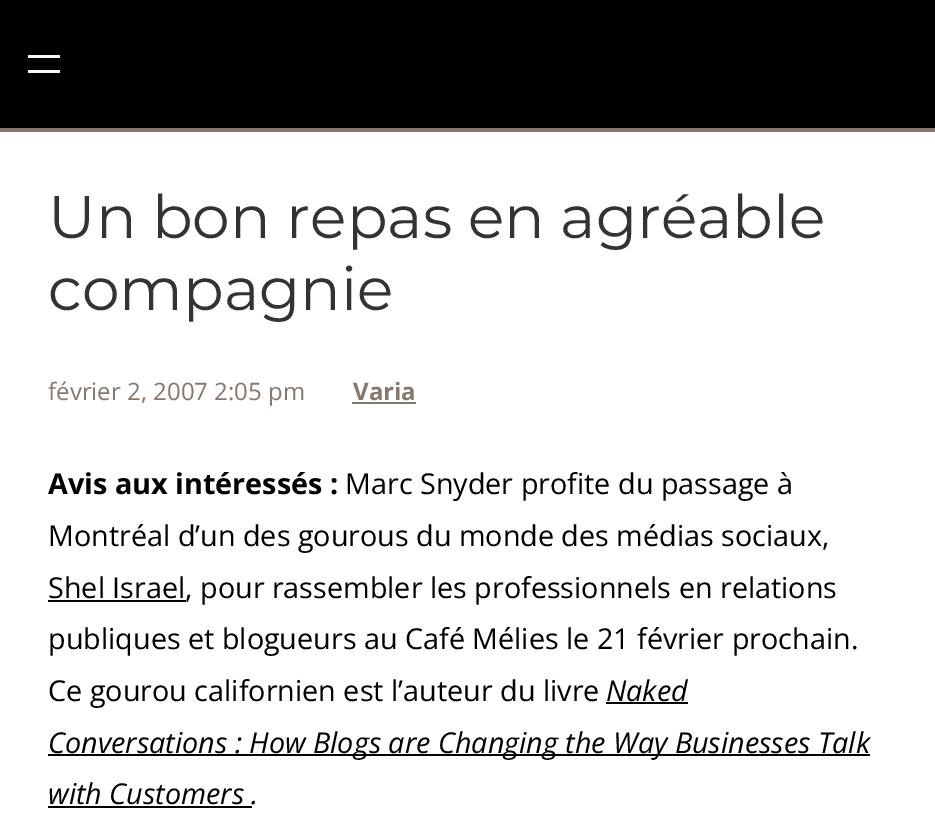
%!PS-Adobe-3.0
%%BoundingBox: 0 0 935 836
%%LanguageLevel: 3
%%Pages: 1
%%EndComments
%%BeginProlog
%%EndProlog
%%BeginSetup
<< /PageSize [935 836] >> setpagedevice
%%EndSetup
%%Page: 1 1
0 836 translate 1 -1 scale
4 setmiterlimit
1 setgray
0 0 935 836 rectfill
0 setgray
0 0 935 128 rectfill
0.533 0.467 0.427 setrgbcolor
0 128 935 4 rectfill
0.973 0.976 0.98 setrgbcolor
28 55 32 3 rectfill
28 70 32 3 rectfill
0.533 0.467 0.427 setrgbcolor
352 402 64 2 rectfill
0 setgray
48 600 138 2 rectfill
606 702 82 2 rectfill
48 754 822 2 rectfill
48 806 204 2 rectfill
/Montserrat-Regular [60 0 0 -60 0 0] selectfont
0.2 setgray
48 238 moveto (Un bon repas en agréable) show
48 310 moveto (compagnie) show
/OpenSans-Regular [24 0 0 -24 0 0] selectfont
0.533 0.467 0.427 setrgbcolor
48 400 moveto (février 2, 2007 2:05 pm) show
/OpenSans-Bold [24 0 0 -24 0 0] selectfont
353 400 moveto (Varia) show
/OpenSans-Bold [28.75 0 0 -28.75 0 0] selectfont
0 setgray
48 494 moveto (Avis aux intéressés :) show
/OpenSans-Regular [28.75 0 0 -28.75 0 0] selectfont
345 494 moveto (Marc Snyder profite du passage à) show
48 546 moveto (Montréal d’un des gourous du monde des médias sociaux,) show
48 598 moveto (Shel Israel, pour rassembler les professionnels en relations) show
48 649 moveto (publiques et blogueurs au Café Mélies le 21 février prochain.) show
48 701 moveto (Ce gourou californien est l’auteur du livre) show
/OpenSans-Italic [28.75 0 0 -28.75 0 0] selectfont
606 701 moveto (Naked) show
48 753 moveto (Conversations : How Blogs are Changing the Way Businesses Talk) show
48 804 moveto (with Customers .) show
showpage
%%EOF
